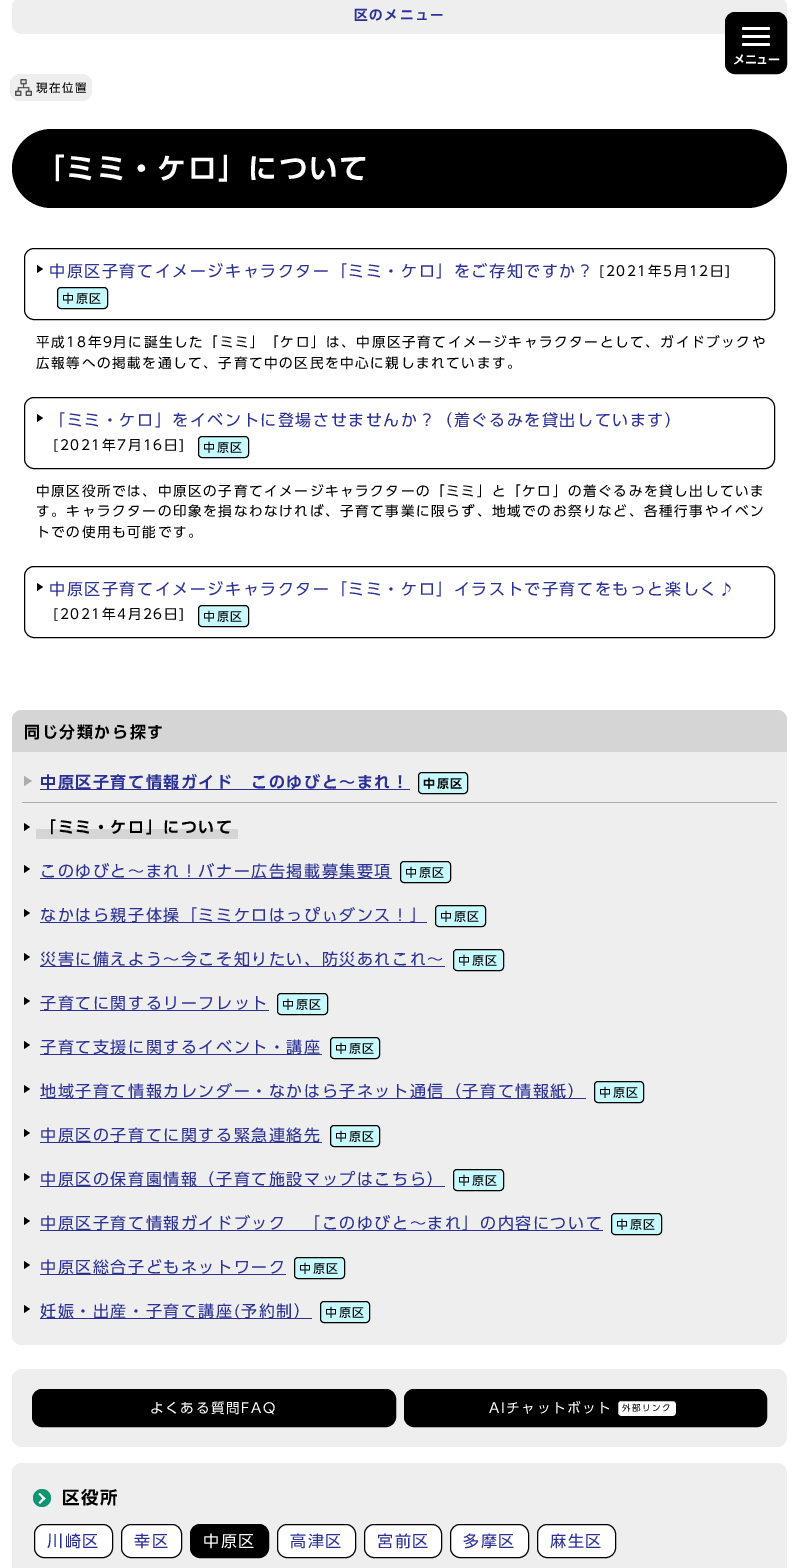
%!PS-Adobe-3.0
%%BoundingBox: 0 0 799 1568
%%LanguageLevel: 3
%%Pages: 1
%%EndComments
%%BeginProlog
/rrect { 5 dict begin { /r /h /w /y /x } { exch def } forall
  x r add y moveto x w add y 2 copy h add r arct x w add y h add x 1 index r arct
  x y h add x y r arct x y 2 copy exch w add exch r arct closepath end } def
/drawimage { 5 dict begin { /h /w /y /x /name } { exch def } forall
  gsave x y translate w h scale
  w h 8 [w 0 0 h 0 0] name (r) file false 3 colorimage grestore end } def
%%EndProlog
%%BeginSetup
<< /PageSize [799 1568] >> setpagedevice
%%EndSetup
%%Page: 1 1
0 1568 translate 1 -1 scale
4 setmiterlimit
1 setgray
0 0 799 1568 rectfill
0.933 setgray
12 -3 775 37 10 rrect fill
0 setgray
725.5 12.5 61 61 9.5 rrect gsave fill grestore
stroke
1 setgray
742 27 28 3 1.5 rrect fill
742 35 28 3 1.5 rrect fill
742 43 28 3 1.5 rrect fill
0.933 setgray
10 74 82 27 10 rrect fill
(images/1.raw) 15 79 17 17 drawimage
0 setgray
12 129 775 79 39.5 rrect fill
24.5 248.5 750 71 9.5 rrect stroke
newpath 37 273 moveto 37 265 lineto 43 269 lineto closepath fill
0.776 0.98 1 setrgbcolor
57.5 287.5 50 21 3.5 rrect gsave fill grestore
0 setgray
stroke
24.5 397.5 750 71 9.5 rrect stroke
newpath 37 422 moveto 37 414 lineto 43 418 lineto closepath fill
0.776 0.98 1 setrgbcolor
198.5 436.5 50 21 3.5 rrect gsave fill grestore
0 setgray
stroke
24.5 566.5 750 71 9.5 rrect stroke
newpath 37 591 moveto 37 583 lineto 43 587 lineto closepath fill
0.776 0.98 1 setrgbcolor
198.5 605.5 50 21 3.5 rrect gsave fill grestore
0 setgray
stroke
0.933 setgray
12 710 775 635 10 rrect fill
0.835 setgray
newpath 22 710 moveto 777 710 lineto 782.5 710 787 714.5 787 720 curveto 787 752 lineto 12 752 lineto 12 720 lineto 12 714.5 16.5 710 22 710 curveto closepath fill
0.675 setgray
22 802 755 1 rectfill
newpath 24 786 moveto 24 776 lineto 32 781 lineto closepath fill
0.169 0.188 0.584 setrgbcolor
40 789 370 1 rectfill
0.776 0.98 1 setrgbcolor
418.5 772.5 49 21 3.5 rrect gsave fill grestore
0 setgray
stroke
newpath 24 831 moveto 24 823 lineto 30 827 lineto closepath fill
0.835 setgray
36 829 202 10 rectfill
0 setgray
newpath 24 873 moveto 24 865 lineto 30 869 lineto closepath fill
0.169 0.188 0.584 setrgbcolor
40 878 352 1 rectfill
0.776 0.98 1 setrgbcolor
400.5 861.5 50 21 3.5 rrect gsave fill grestore
0 setgray
stroke
newpath 24 917 moveto 24 909 lineto 30 913 lineto closepath fill
0.169 0.188 0.584 setrgbcolor
40 922 387 1 rectfill
0.776 0.98 1 setrgbcolor
435.5 905.5 50 21 3.5 rrect gsave fill grestore
0 setgray
stroke
newpath 24 961 moveto 24 953 lineto 30 957 lineto closepath fill
0.169 0.188 0.584 setrgbcolor
40 966 405 1 rectfill
0.776 0.98 1 setrgbcolor
453.5 949.5 50 21 3.5 rrect gsave fill grestore
0 setgray
stroke
newpath 24 1005 moveto 24 997 lineto 30 1001 lineto closepath fill
0.169 0.188 0.584 setrgbcolor
40 1010 229 1 rectfill
0.776 0.98 1 setrgbcolor
277.5 993.5 50 21 3.5 rrect gsave fill grestore
0 setgray
stroke
newpath 24 1049 moveto 24 1041 lineto 30 1045 lineto closepath fill
0.169 0.188 0.584 setrgbcolor
40 1054 282 1 rectfill
0.776 0.98 1 setrgbcolor
330.5 1037.5 49 21 3.5 rrect gsave fill grestore
0 setgray
stroke
newpath 24 1093 moveto 24 1085 lineto 30 1089 lineto closepath fill
0.169 0.188 0.584 setrgbcolor
40 1098 546 1 rectfill
0.776 0.98 1 setrgbcolor
594.5 1081.5 49 21 3.5 rrect gsave fill grestore
0 setgray
stroke
newpath 24 1137 moveto 24 1129 lineto 30 1133 lineto closepath fill
0.169 0.188 0.584 setrgbcolor
40 1142 282 1 rectfill
0.776 0.98 1 setrgbcolor
330.5 1125.5 49 21 3.5 rrect gsave fill grestore
0 setgray
stroke
newpath 24 1181 moveto 24 1173 lineto 30 1177 lineto closepath fill
0.169 0.188 0.584 setrgbcolor
40 1186 405 1 rectfill
0.776 0.98 1 setrgbcolor
453.5 1169.5 50 21 3.5 rrect gsave fill grestore
0 setgray
stroke
newpath 24 1225 moveto 24 1217 lineto 30 1221 lineto closepath fill
0.169 0.188 0.584 setrgbcolor
40 1230 563 1 rectfill
0.776 0.98 1 setrgbcolor
611.5 1213.5 50 21 3.5 rrect gsave fill grestore
0 setgray
stroke
newpath 24 1269 moveto 24 1261 lineto 30 1265 lineto closepath fill
0.169 0.188 0.584 setrgbcolor
40 1274 246 1 rectfill
0.776 0.98 1 setrgbcolor
294.5 1257.5 50 21 3.5 rrect gsave fill grestore
0 setgray
stroke
newpath 24 1313 moveto 24 1305 lineto 30 1309 lineto closepath fill
0.169 0.188 0.584 setrgbcolor
40 1318 272 1 rectfill
0.776 0.98 1 setrgbcolor
320.5 1301.5 49 21 3.5 rrect gsave fill grestore
0 setgray
stroke
0.933 setgray
12 1369 775 78 10 rrect fill
0 setgray
32.5 1389.5 363 37 9.5 rrect gsave fill grestore
stroke
404.5 1389.5 362 37 9.5 rrect gsave fill grestore
stroke
1 setgray
617.5 1400.5 59 16 3.5 rrect gsave fill grestore
0 setgray
stroke
0.933 setgray
12 1463 775 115 10 rrect fill
0.059 0.584 0.443 setrgbcolor
newpath 42 1498 9 0 360 arc closepath fill
1 setgray
newpath 38.5 1494 moveto 40 1493 lineto 45.5 1498.5 lineto 44 1500 lineto closepath fill
newpath 38.5 1502.5 moveto 44 1497 lineto 45.5 1498.5 lineto 40 1504 lineto closepath fill
34.5 1524.5 78 33 9.5 rrect gsave fill grestore
0 setgray
stroke
1 setgray
121.5 1524.5 60 33 9.5 rrect gsave fill grestore
0 setgray
stroke
190.5 1524.5 78 33 9.5 rrect gsave fill grestore
stroke
1 setgray
277.5 1524.5 78 33 9.5 rrect gsave fill grestore
0 setgray
stroke
1 setgray
364.5 1524.5 77 33 9.5 rrect gsave fill grestore
0 setgray
stroke
1 setgray
450.5 1524.5 78 33 9.5 rrect gsave fill grestore
0 setgray
stroke
1 setgray
537.5 1524.5 78 33 9.5 rrect gsave fill grestore
0 setgray
stroke
/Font-SemiBold [13.6 0 0 -13.6 0 0] selectfont
0.169 0.188 0.584 setrgbcolor
354 20 moveto 1.6 0 (区のメニュー) ashow
/Font-SemiBold [12 0 0 -12 0 0] selectfont
1 setgray
733 64 moveto -0.5 0 (メニュー) ashow
/Font-Regular [11.5 0 0 -11.5 0 0] selectfont
0 setgray
36 92 moveto 1.6 0 (現在位置) ashow
/Font-SemiBold [28.75 0 0 -28.75 0 0] selectfont
1 setgray
36 179 moveto 1.6 0 (「ミミ・ケロ」について) ashow
/Font-Regular [16 0 0 -16 0 0] selectfont
0.169 0.188 0.584 setrgbcolor
49 277 moveto 1.6 0 (中原区子育てイメージキャラクター「ミミ・ケロ」をご存知ですか？) ashow
/Font-Regular [13.6 0 0 -13.6 0 0] selectfont
0 setgray
599 276 moveto 1.6 0 ([2021年5月12日]) ashow
/Font-Regular [12 0 0 -12 0 0] selectfont
62 303 moveto 1.6 0 (中原区) ashow
/Font-Regular [13.6 0 0 -13.6 0 0] selectfont
36 347 moveto 1.6 0 (平成18年9月に誕生した「ミミ」「ケロ」は、中原区子育てイメージキャラクターとして、ガイドブックや) ashow
36 368 moveto 1.6 0 (広報等への掲載を通して、子育て中の区民を中心に親しまれています。) ashow
/Font-Regular [16 0 0 -16 0 0] selectfont
0.169 0.188 0.584 setrgbcolor
49 426 moveto 1.6 0 (「ミミ・ケロ」をイベントに登場させませんか？（着ぐるみを貸出しています）) ashow
/Font-Regular [13.6 0 0 -13.6 0 0] selectfont
0 setgray
53 450 moveto 1.6 0 ([2021年7月16日]) ashow
/Font-Regular [12 0 0 -12 0 0] selectfont
203 452 moveto 1.6 0 (中原区) ashow
/Font-Regular [13.6 0 0 -13.6 0 0] selectfont
36 496 moveto 1.6 0 (中原区役所では、中原区の子育てイメージキャラクターの「ミミ」と「ケロ」の着ぐるみを貸し出していま) ashow
36 516 moveto 1.6 0 (す。キャラクターの印象を損なわなければ、子育て事業に限らず、地域でのお祭りなど、各種行事やイベン) ashow
36 537 moveto 1.6 0 (トでの使用も可能です。) ashow
/Font-Regular [16 0 0 -16 0 0] selectfont
0.169 0.188 0.584 setrgbcolor
49 595 moveto 1.6 0 (中原区子育てイメージキャラクター「ミミ・ケロ」イラストで子育てをもっと楽しく♪) ashow
/Font-Regular [13.6 0 0 -13.6 0 0] selectfont
0 setgray
53 619 moveto 1.6 0 ([2021年4月26日]) ashow
/Font-Regular [12 0 0 -12 0 0] selectfont
203 621 moveto 1.6 0 (中原区) ashow
/Font-SemiBold [16 0 0 -16 0 0] selectfont
24 738 moveto 1.6 0 (同じ分類から探す) ashow
0.169 0.188 0.584 setrgbcolor
40 788 moveto 1.6 0 (中原区子育て情報ガイド　このゆびと～まれ！) ashow
/Font-SemiBold [12 0 0 -12 0 0] selectfont
0 setgray
423 788 moveto 1.6 0 (中原区) ashow
/Font-SemiBold [16 0 0 -16 0 0] selectfont
40 833 moveto 1.6 0 (「ミミ・ケロ」について) ashow
/Font-Regular [16 0 0 -16 0 0] selectfont
0.169 0.188 0.584 setrgbcolor
40 877 moveto 1.6 0 (このゆびと～まれ！バナー広告掲載募集要項) ashow
/Font-Regular [12 0 0 -12 0 0] selectfont
0 setgray
405 877 moveto 1.6 0 (中原区) ashow
/Font-Regular [16 0 0 -16 0 0] selectfont
0.169 0.188 0.584 setrgbcolor
40 921 moveto 1.6 0 (なかはら親子体操「ミミケロはっぴぃダンス！」) ashow
/Font-Regular [12 0 0 -12 0 0] selectfont
0 setgray
440 921 moveto 1.6 0 (中原区) ashow
/Font-Regular [16 0 0 -16 0 0] selectfont
0.169 0.188 0.584 setrgbcolor
40 965 moveto 1.6 0 (災害に備えよう～今こそ知りたい、防災あれこれ～) ashow
/Font-Regular [12 0 0 -12 0 0] selectfont
0 setgray
458 965 moveto 1.6 0 (中原区) ashow
/Font-Regular [16 0 0 -16 0 0] selectfont
0.169 0.188 0.584 setrgbcolor
40 1009 moveto 1.6 0 (子育てに関するリーフレット) ashow
/Font-Regular [12 0 0 -12 0 0] selectfont
0 setgray
282 1009 moveto 1.6 0 (中原区) ashow
/Font-Regular [16 0 0 -16 0 0] selectfont
0.169 0.188 0.584 setrgbcolor
40 1053 moveto 1.6 0 (子育て支援に関するイベント・講座) ashow
/Font-Regular [12 0 0 -12 0 0] selectfont
0 setgray
335 1053 moveto 1.6 0 (中原区) ashow
/Font-Regular [16 0 0 -16 0 0] selectfont
0.169 0.188 0.584 setrgbcolor
40 1097 moveto 1.6 0 (地域子育て情報カレンダー・なかはら子ネット通信（子育て情報紙）) ashow
/Font-Regular [12 0 0 -12 0 0] selectfont
0 setgray
599 1097 moveto 1.6 0 (中原区) ashow
/Font-Regular [16 0 0 -16 0 0] selectfont
0.169 0.188 0.584 setrgbcolor
40 1141 moveto 1.6 0 (中原区の子育てに関する緊急連絡先) ashow
/Font-Regular [12 0 0 -12 0 0] selectfont
0 setgray
335 1141 moveto 1.6 0 (中原区) ashow
/Font-Regular [16 0 0 -16 0 0] selectfont
0.169 0.188 0.584 setrgbcolor
40 1185 moveto 1.6 0 (中原区の保育園情報（子育て施設マップはこちら）) ashow
/Font-Regular [12 0 0 -12 0 0] selectfont
0 setgray
458 1185 moveto 1.6 0 (中原区) ashow
/Font-Regular [16 0 0 -16 0 0] selectfont
0.169 0.188 0.584 setrgbcolor
40 1229 moveto 1.6 0 (中原区子育て情報ガイドブック　「このゆびと～まれ」の内容について) ashow
/Font-Regular [12 0 0 -12 0 0] selectfont
0 setgray
616 1229 moveto 1.6 0 (中原区) ashow
/Font-Regular [16 0 0 -16 0 0] selectfont
0.169 0.188 0.584 setrgbcolor
40 1273 moveto 1.6 0 (中原区総合子どもネットワーク) ashow
/Font-Regular [12 0 0 -12 0 0] selectfont
0 setgray
299 1273 moveto 1.6 0 (中原区) ashow
/Font-Regular [16 0 0 -16 0 0] selectfont
0.169 0.188 0.584 setrgbcolor
40 1317 moveto 1.6 0 (妊娠・出産・子育て講座\(予約制）) ashow
/Font-Regular [12 0 0 -12 0 0] selectfont
0 setgray
325 1317 moveto 1.6 0 (中原区) ashow
/Font-Regular [13.6 0 0 -13.6 0 0] selectfont
1 setgray
150 1413 moveto 1.6 0 (よくある質問FAQ) ashow
489 1413 moveto 1.6 0 (AIチャットボット) ashow
/Font-Regular [8.5 0 0 -8.5 0 0] selectfont
0 setgray
622 1411 moveto 1.6 0 (外部リンク) ashow
/Font-SemiBold [17.5 0 0 -17.5 0 0] selectfont
62 1504 moveto 1.6 0 (区役所) ashow
/Font-Regular [16 0 0 -16 0 0] selectfont
0.169 0.188 0.584 setrgbcolor
47 1547 moveto 1.6 0 (川崎区) ashow
134 1547 moveto 1.6 0 (幸区) ashow
1 setgray
203 1547 moveto 1.6 0 (中原区) ashow
0.169 0.188 0.584 setrgbcolor
290 1547 moveto 1.6 0 (高津区) ashow
377 1547 moveto 1.6 0 (宮前区) ashow
463 1547 moveto 1.6 0 (多摩区) ashow
550 1547 moveto 1.6 0 (麻生区) ashow
showpage
%%EOF
